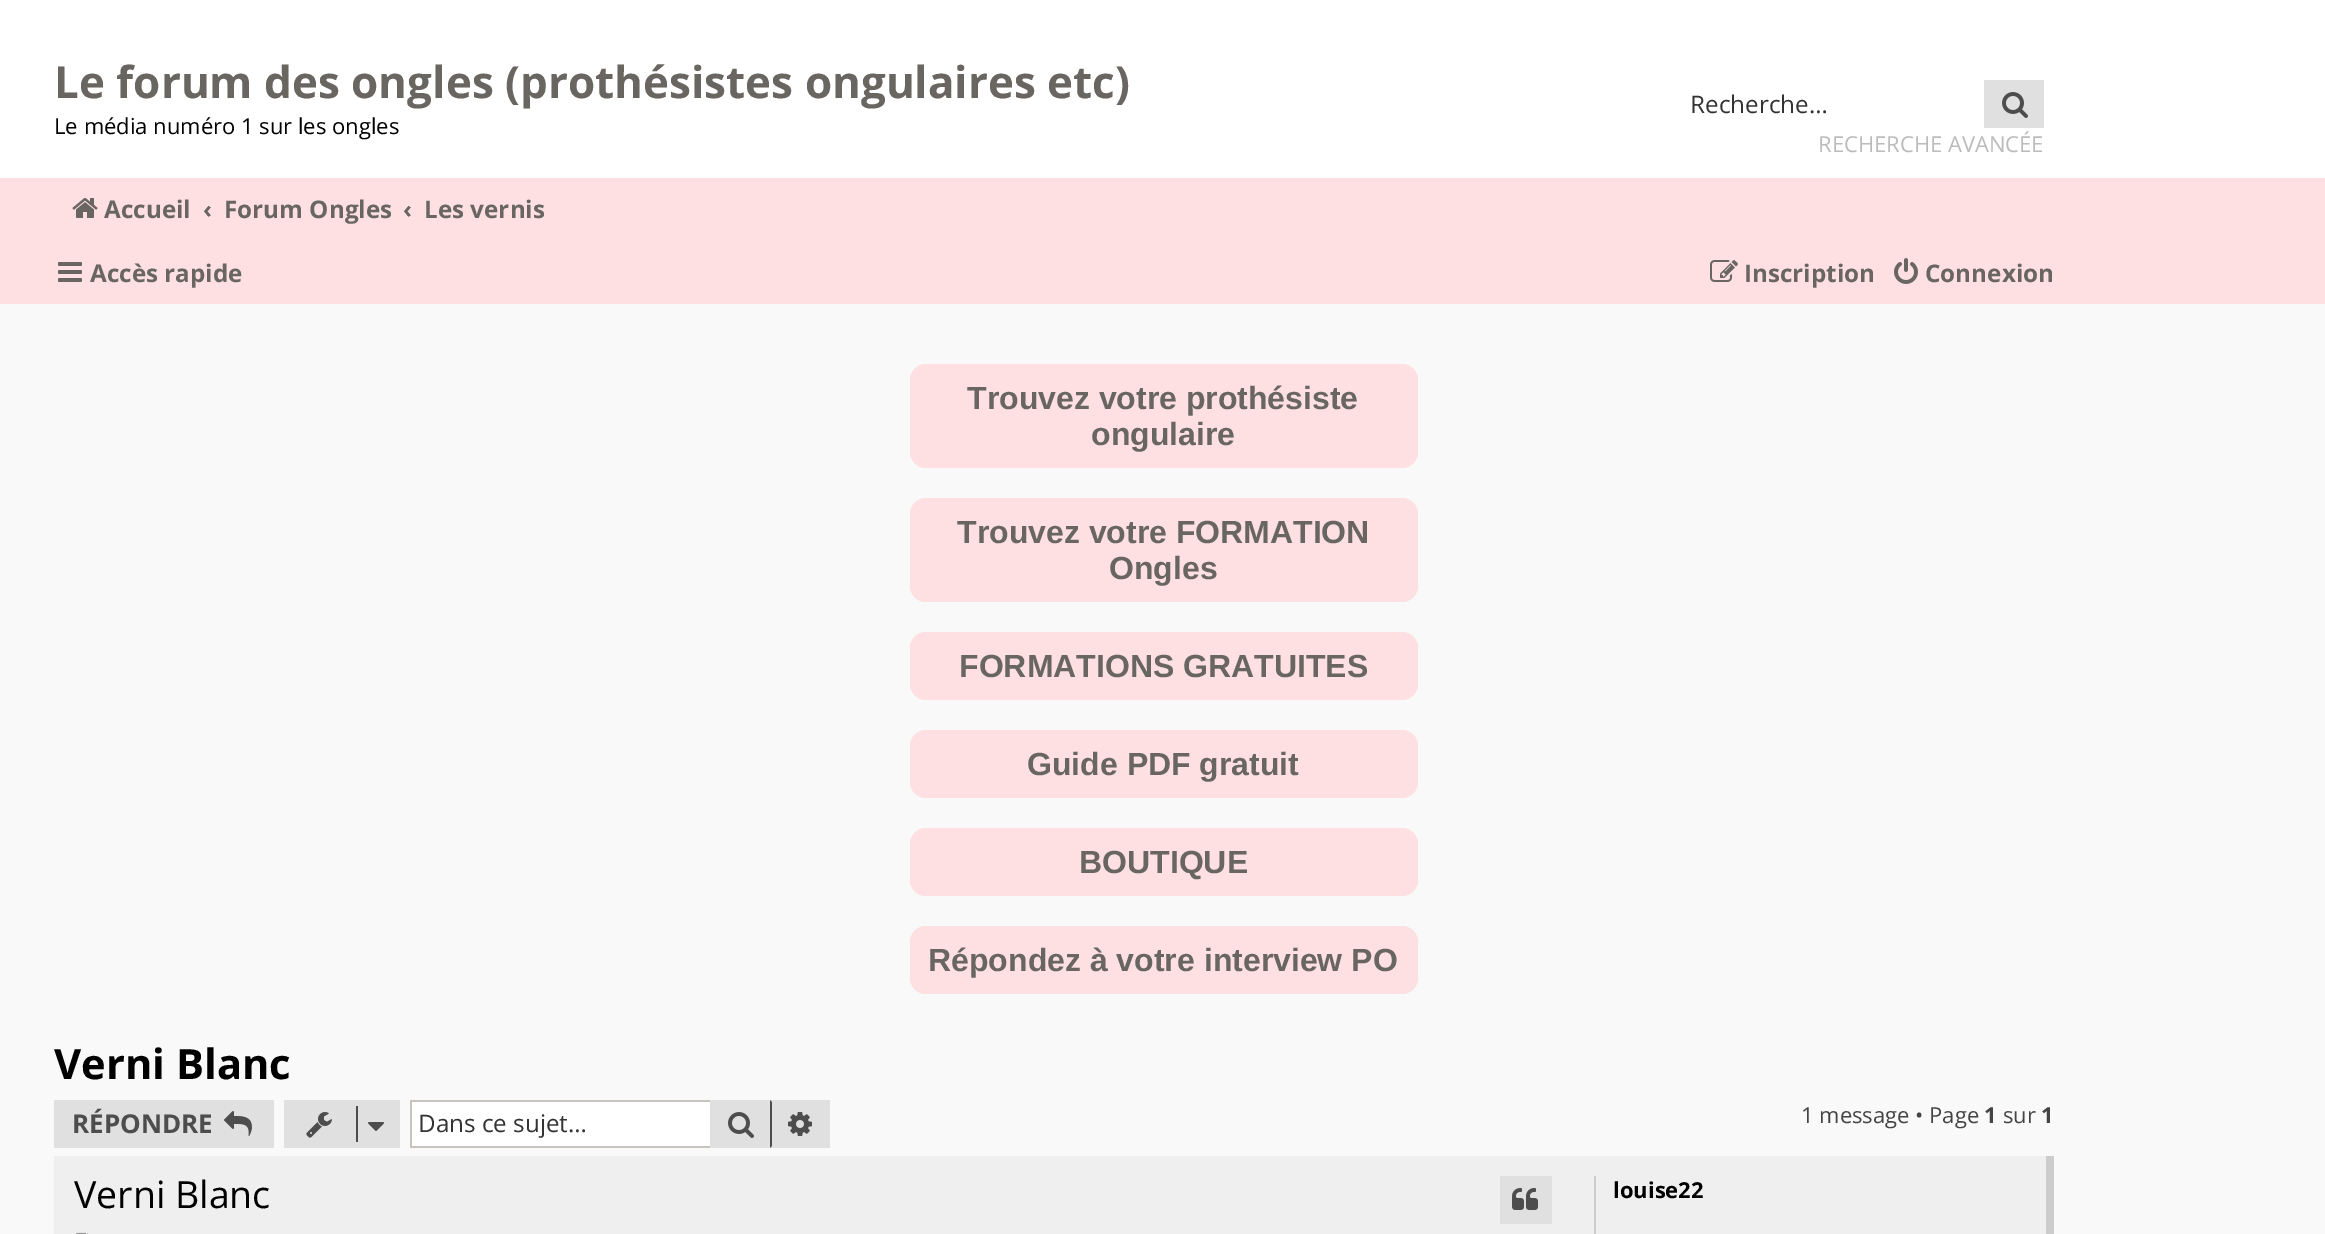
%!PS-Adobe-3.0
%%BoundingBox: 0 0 2325 1234
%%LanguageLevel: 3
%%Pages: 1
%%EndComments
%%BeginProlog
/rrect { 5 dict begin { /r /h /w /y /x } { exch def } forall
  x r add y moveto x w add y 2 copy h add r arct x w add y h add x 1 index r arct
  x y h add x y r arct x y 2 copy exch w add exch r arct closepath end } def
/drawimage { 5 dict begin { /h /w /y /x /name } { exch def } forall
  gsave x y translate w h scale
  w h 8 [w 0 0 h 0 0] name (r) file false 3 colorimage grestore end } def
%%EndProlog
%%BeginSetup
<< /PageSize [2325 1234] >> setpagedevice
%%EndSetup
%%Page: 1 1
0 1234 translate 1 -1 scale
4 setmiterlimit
0.976 setgray
0 0 2325 1234 rectfill
1 setgray
0 0 2325 178 rectfill
0.878 setgray
1984 80 60 48 rectfill
(images/1.raw) 2002 92 26 26 drawimage
0.996 0.878 0.886 setrgbcolor
0 178 2325 126 rectfill
(images/2.raw) 72 198 26 20 drawimage
(images/3.raw) 58 262 24 20 drawimage
(images/4.raw) 1710 260 28 22 drawimage
(images/5.raw) 1894 258 24 26 drawimage
910 364 508 104 16 rrect fill
910 376 508 80 rectfill
910 498 508 104 16 rrect fill
910 510 508 80 rectfill
910 632 508 68 16 rrect fill
910 644 508 44 rectfill
910 730 508 68 16 rrect fill
910 742 508 44 rectfill
910 828 508 68 16 rrect fill
910 840 508 44 rectfill
910 926 508 68 16 rrect fill
910 938 508 44 rectfill
0.878 setgray
54 1100 220 48 rectfill
(images/6.raw) 224 1111 28 25 drawimage
284 1100 116 48 rectfill
(images/7.raw) 306 1112 26 26 drawimage
0.302 setgray
356 1106 2 36 rectfill
(images/8.raw) 368 1122 16 9 drawimage
0.878 setgray
710 1100 120 48 rectfill
(images/1.raw) 728 1112 26 26 drawimage
1 setgray
412 1102 298 44 rectfill
0.78 0.765 0.749 setrgbcolor
410 1100 300 2 rectfill
410 1146 300 2 rectfill
410 1100 2 48 rectfill
0.302 setgray
newpath 770 1148 moveto 770 1100 lineto 772 1102 lineto 772 1146 lineto closepath fill
(images/9.raw) 788 1112 24 24 drawimage
0.937 setgray
54 1156 1992 78 rectfill
0.8 setgray
2046 1156 8 78 rectfill
0.878 setgray
1500 1176 52 48 rectfill
(images/10.raw) 1512 1188 26 22 drawimage
(images/11.raw) 76 1232 12 2 drawimage
0.8 setgray
1594 1176 2 58 rectfill
/OpenSans-Bold [44 0 0 -44 0 0] selectfont
0.412 0.4 0.38 setrgbcolor
54 98 moveto (Le forum des ongles \(prothésistes ongulaires etc\)) show
/OpenSans-Regular [22 0 0 -22 0 0] selectfont
0 setgray
54 134 moveto (Le média numéro 1 sur les ongles) show
/OpenSans-Regular [24.25 0 0 -24.25 0 0] selectfont
0.2 setgray
1690 113 moveto (Recherche…) show
/OpenSans-Regular [22 0 0 -22 0 0] selectfont
0.733 setgray
1818 152 moveto (RECHERCHE AVANCÉE) show
/OpenSans-Bold [24.25 0 0 -24.25 0 0] selectfont
0.412 0.4 0.38 setrgbcolor
104 218 moveto (Accueil) show
203 218 moveto (‹) show
224 218 moveto (Forum Ongles) show
403 218 moveto (‹) show
424 218 moveto (Les vernis) show
90 282 moveto (Accès rapide) show
1744 282 moveto (Inscription) show
1925 282 moveto (Connexion) show
/LiberationSans-Bold [32 0 0 -32 0 0] selectfont
967 409 moveto (Trouvez votre prothésiste) show
1091 445 moveto (ongulaire) show
957 543 moveto (Trouvez votre FORMATION) show
1109 579 moveto (Ongles) show
959 677 moveto (FORMATIONS GRATUITES) show
1027 775 moveto (Guide PDF gratuit) show
1079 873 moveto (BOUTIQUE) show
928 971 moveto (Répondez à votre interview PO) show
/OpenSans-Bold [41.75 0 0 -41.75 0 0] selectfont
0 setgray
54 1079 moveto (Verni Blanc) show
/OpenSans-Bold [26 0 0 -26 0 0] selectfont
0.302 setgray
72 1133 moveto (RÉPONDRE) show
/OpenSans-Regular [24.25 0 0 -24.25 0 0] selectfont
0.2 setgray
418 1132 moveto (Dans ce sujet…) show
/OpenSans-Regular [22 0 0 -22 0 0] selectfont
0.267 setgray
1801 1123 moveto (1 message • Page) show
/OpenSans-Bold [22 0 0 -22 0 0] selectfont
1984 1123 moveto (1) show
/OpenSans-Regular [22 0 0 -22 0 0] selectfont
2003 1123 moveto (sur) show
/OpenSans-Bold [22 0 0 -22 0 0] selectfont
2041 1123 moveto (1) show
/OpenSans-Regular [37.5 0 0 -37.5 0 0] selectfont
0 setgray
74 1208 moveto (Verni Blanc) show
/OpenSans-Bold [22 0 0 -22 0 0] selectfont
1613 1198 moveto (louise22) show
showpage
%%EOF
